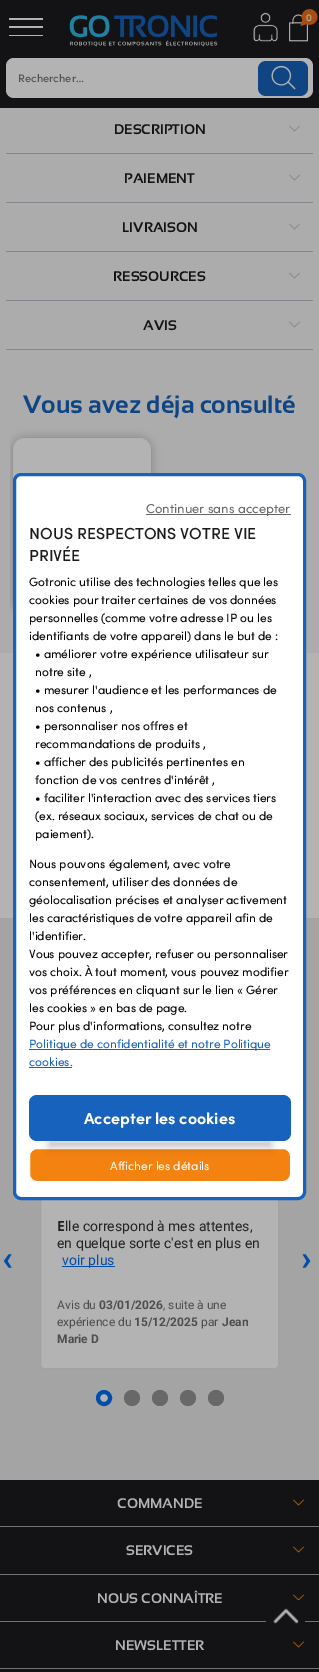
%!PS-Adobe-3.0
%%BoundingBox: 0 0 319 1672
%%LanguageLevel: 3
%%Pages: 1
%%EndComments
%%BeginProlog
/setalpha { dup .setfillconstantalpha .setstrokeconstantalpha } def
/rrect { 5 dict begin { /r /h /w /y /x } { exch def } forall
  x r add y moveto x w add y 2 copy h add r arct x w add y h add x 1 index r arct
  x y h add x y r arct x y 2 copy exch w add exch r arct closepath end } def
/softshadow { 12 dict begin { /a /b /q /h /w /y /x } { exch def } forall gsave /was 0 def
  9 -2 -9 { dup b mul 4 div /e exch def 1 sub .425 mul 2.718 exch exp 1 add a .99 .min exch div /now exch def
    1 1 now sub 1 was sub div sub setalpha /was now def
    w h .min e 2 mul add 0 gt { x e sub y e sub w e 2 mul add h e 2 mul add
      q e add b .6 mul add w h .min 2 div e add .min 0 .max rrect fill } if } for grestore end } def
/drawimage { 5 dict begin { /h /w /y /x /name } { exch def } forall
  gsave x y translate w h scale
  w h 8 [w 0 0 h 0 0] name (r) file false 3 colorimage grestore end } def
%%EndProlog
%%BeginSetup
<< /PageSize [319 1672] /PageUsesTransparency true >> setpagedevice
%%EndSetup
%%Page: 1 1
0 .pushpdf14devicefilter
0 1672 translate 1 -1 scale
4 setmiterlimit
0.675 0.675 0.678 setrgbcolor
0 0 319 1672 rectfill
0.075 0.075 0.082 setrgbcolor
0 0 319 108 rectfill
0.702 setgray
9 18 34 2 rectfill
9 26 34 2 rectfill
9 35 34 1 rectfill
(images/1.raw) 69 15 149 32 drawimage
(images/2.raw) 253 12 25 30 drawimage
(images/3.raw) 289 14 19 28 drawimage
(images/4.raw) 300 9 18 17 drawimage
6 58 307 40 8 rrect fill
0.063 0.271 0.518 setrgbcolor
258 61 50 35 8 rrect fill
(images/5.raw) 271 65 25 25 drawimage
0.525 0.525 0.561 setrgbcolor
6 153 307 1 rectfill
(images/6.raw) 289 125 11 7 drawimage
6 202 307 1 rectfill
(images/6.raw) 289 174 11 7 drawimage
6 251 307 1 rectfill
(images/6.raw) 289 223 11 7 drawimage
6 300 307 1 rectfill
(images/6.raw) 289 272 11 7 drawimage
6 349 307 1 rectfill
(images/6.raw) 289 321 11 7 drawimage
gsave
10 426 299 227 rectclip
0.427 setgray
13 438 138 174 12 5 0.71 softshadow
grestore
0.702 setgray
13 438 138 174 12 rrect fill
0 653 319 265 rectfill
0.643 setgray
0 918 319 562 rectfill
0.702 setgray
40.5 1148.5 238 220 3.5 rrect gsave fill grestore
0.635 setgray
stroke
0 0.306 0.675 setrgbcolor
62 1266 53 1 rectfill
0.702 setgray
newpath 104 1398 6 0 360 arc closepath gsave fill grestore
0 0.306 0.675 setrgbcolor
4 setlinewidth
stroke
0.408 setgray
newpath 132 1398 8 0 360 arc closepath fill
newpath 160 1398 8 0 360 arc closepath fill
newpath 188 1398 8 0 360 arc closepath fill
newpath 216 1398 8 0 360 arc closepath fill
0.075 0.075 0.082 setrgbcolor
0 1480 319 192 rectfill
0.435 0.455 0.475 setrgbcolor
0 1526 319 1 rectfill
(images/7.raw) 293 1499 11 7 drawimage
0 1574 319 1 rectfill
(images/7.raw) 293 1546 11 7 drawimage
0 1621 319 1 rectfill
(images/7.raw) 293 1594 11 7 drawimage
0 1668 319 1 rectfill
(images/7.raw) 293 1641 11 7 drawimage
1 setgray
14.5 474.5 290 724 6.5 rrect gsave fill grestore
0.09 0.384 0.737 setrgbcolor
3 setlinewidth
stroke
0.412 setgray
146 514 145 1 rectfill
0.09 0.384 0.737 setrgbcolor
29 1049 241 1 rectfill
29 1067 43 1 rectfill
0.957 0.51 0.067 setrgbcolor
29.5 1148.5 261 33 7.5 rrect gsave fill grestore
1 setgray
1 setlinewidth
stroke
0 setgray
50 1142 220 4 0 5 0.28 softshadow
0.09 0.384 0.737 setrgbcolor
29 1095 262 46 8 rrect fill
0.075 0.075 0.082 setrgbcolor
266 1600 39 32 8 rrect fill
(images/8.raw) 273 1608 26 16 drawimage
/Sofia-Medium [10 0 0 -10 0 0] selectfont
0.702 setgray
306 21 moveto (0) show
/Sofia-Medium [11 0 0 -11 0 0] selectfont
0.298 0.322 0.345 setrgbcolor
18 82 moveto (Rechercher…) show
/Sansation-Bold [14 0 0 -14 0 0] selectfont
0.075 0.075 0.082 setrgbcolor
114 134 moveto (DESCRIPTION) show
124 183 moveto (PAIEMENT) show
122 232 moveto (LIVRAISON) show
113 281 moveto (RESSOURCES) show
143 330 moveto (AVIS) show
/Sansation-Bold [24.9 0 0 -24.9 0 0] selectfont
0.063 0.271 0.518 setrgbcolor
23 413 moveto (Vous avez déja consulté) show
/Roboto-Bold [35 0 0 -35 0 0] selectfont
0 0.306 0.675 setrgbcolor
2 1270 moveto (‹) show
/NotoSans-Bold [14 0 0 -14 0 0] selectfont
0.133 0.137 0.145 setrgbcolor
57 1231 moveto (E) show
/Roboto-Regular [14 0 0 -14 0 0] selectfont
65 1231 moveto (lle correspond à mes attentes,) show
57 1248 moveto (en quelque sorte c'est en plus en) show
0 0.306 0.675 setrgbcolor
62 1265 moveto (voir plus) show
/Roboto-Regular [12 0 0 -12 0 0] selectfont
0.306 0.298 0.298 setrgbcolor
57 1309 moveto (Avis du) show
/Roboto-Bold [12 0 0 -12 0 0] selectfont
99 1309 moveto (03/01/2026) show
/Roboto-Regular [12 0 0 -12 0 0] selectfont
163 1309 moveto (, suite à une) show
57 1326 moveto (expérience du) show
/Roboto-Bold [12 0 0 -12 0 0] selectfont
134 1326 moveto (15/12/2025) show
/Roboto-Regular [12 0 0 -12 0 0] selectfont
201 1326 moveto (par) show
/Roboto-Bold [12 0 0 -12 0 0] selectfont
222 1326 moveto (Jean) show
57 1343 moveto (Marie D) show
/Roboto-Bold [35 0 0 -35 0 0] selectfont
0 0.306 0.675 setrgbcolor
301 1270 moveto (›) show
/Sansation-Bold [14 0 0 -14 0 0] selectfont
0.702 setgray
117 1508 moveto (COMMANDE) show
126 1555 moveto (SERVICES) show
97 1603 moveto (NOUS CONNAÎTRE) show
115 1650 moveto (NEWSLETTER) show
/Sofia-Regular [13 0 0 -13 0 0] selectfont
0.412 setgray
146 513 moveto (Continuer sans accepter) show
/Sofia-Medium [16 0 0 -16 0 0] selectfont
0.106 0.106 0.118 setrgbcolor
29 539 moveto (NOUS RESPECTONS VOTRE VIE) show
29 561 moveto (PRIVÉE) show
/Sofia-Regular [12 0 0 -12 0 0] selectfont
0 setgray
29 586 moveto (Gotronic utilise des technologies telles que les) show
29 604 moveto (cookies pour traiter certaines de vos données) show
29 622 moveto (personnelles \(comme votre adresse IP ou les) show
29 640 moveto (identifiants de votre appareil\) dans le but de :) show
35 658 moveto (• améliorer votre expérience utilisateur sur) show
35 676 moveto (notre site ,) show
35 694 moveto (• mesurer l'audience et les performances de) show
35 712 moveto (nos contenus ,) show
35 730 moveto (• personnaliser nos offres et) show
35 748 moveto (recommandations de produits ,) show
35 766 moveto (• afficher des publicités pertinentes en) show
35 784 moveto (fonction de vos centres d'intérêt ,) show
35 802 moveto (• faciliter l'interaction avec des services tiers) show
35 820 moveto (\(ex. réseaux sociaux, services de chat ou de) show
35 838 moveto (paiement\).) show
29 868 moveto (Nous pouvons également, avec votre) show
29 886 moveto (consentement, utiliser des données de) show
29 904 moveto (géolocalisation précises et analyser activement) show
29 922 moveto (les caractéristiques de votre appareil afin de) show
29 940 moveto (l'identifier.) show
29 958 moveto (Vous pouvez accepter, refuser ou personnaliser) show
29 976 moveto (vos choix. À tout moment, vous pouvez modifier) show
29 994 moveto (vos préférences en cliquant sur le lien « Gérer) show
29 1012 moveto (les cookies » en bas de page.) show
29 1030 moveto (Pour plus d'informations, consultez notre) show
0.09 0.384 0.737 setrgbcolor
29 1048 moveto (Politique de confidentialité et notre Politique) show
29 1066 moveto (cookies.) show
/Sofia-Bold [16 0 0 -16 0 0] selectfont
1 setgray
84 1124 moveto (Accepter les cookies) show
/Sofia-Regular [12 0 0 -12 0 0] selectfont
110 1170 moveto (Afficher les détails) show
.poppdf14devicefilter showpage
%%EOF
